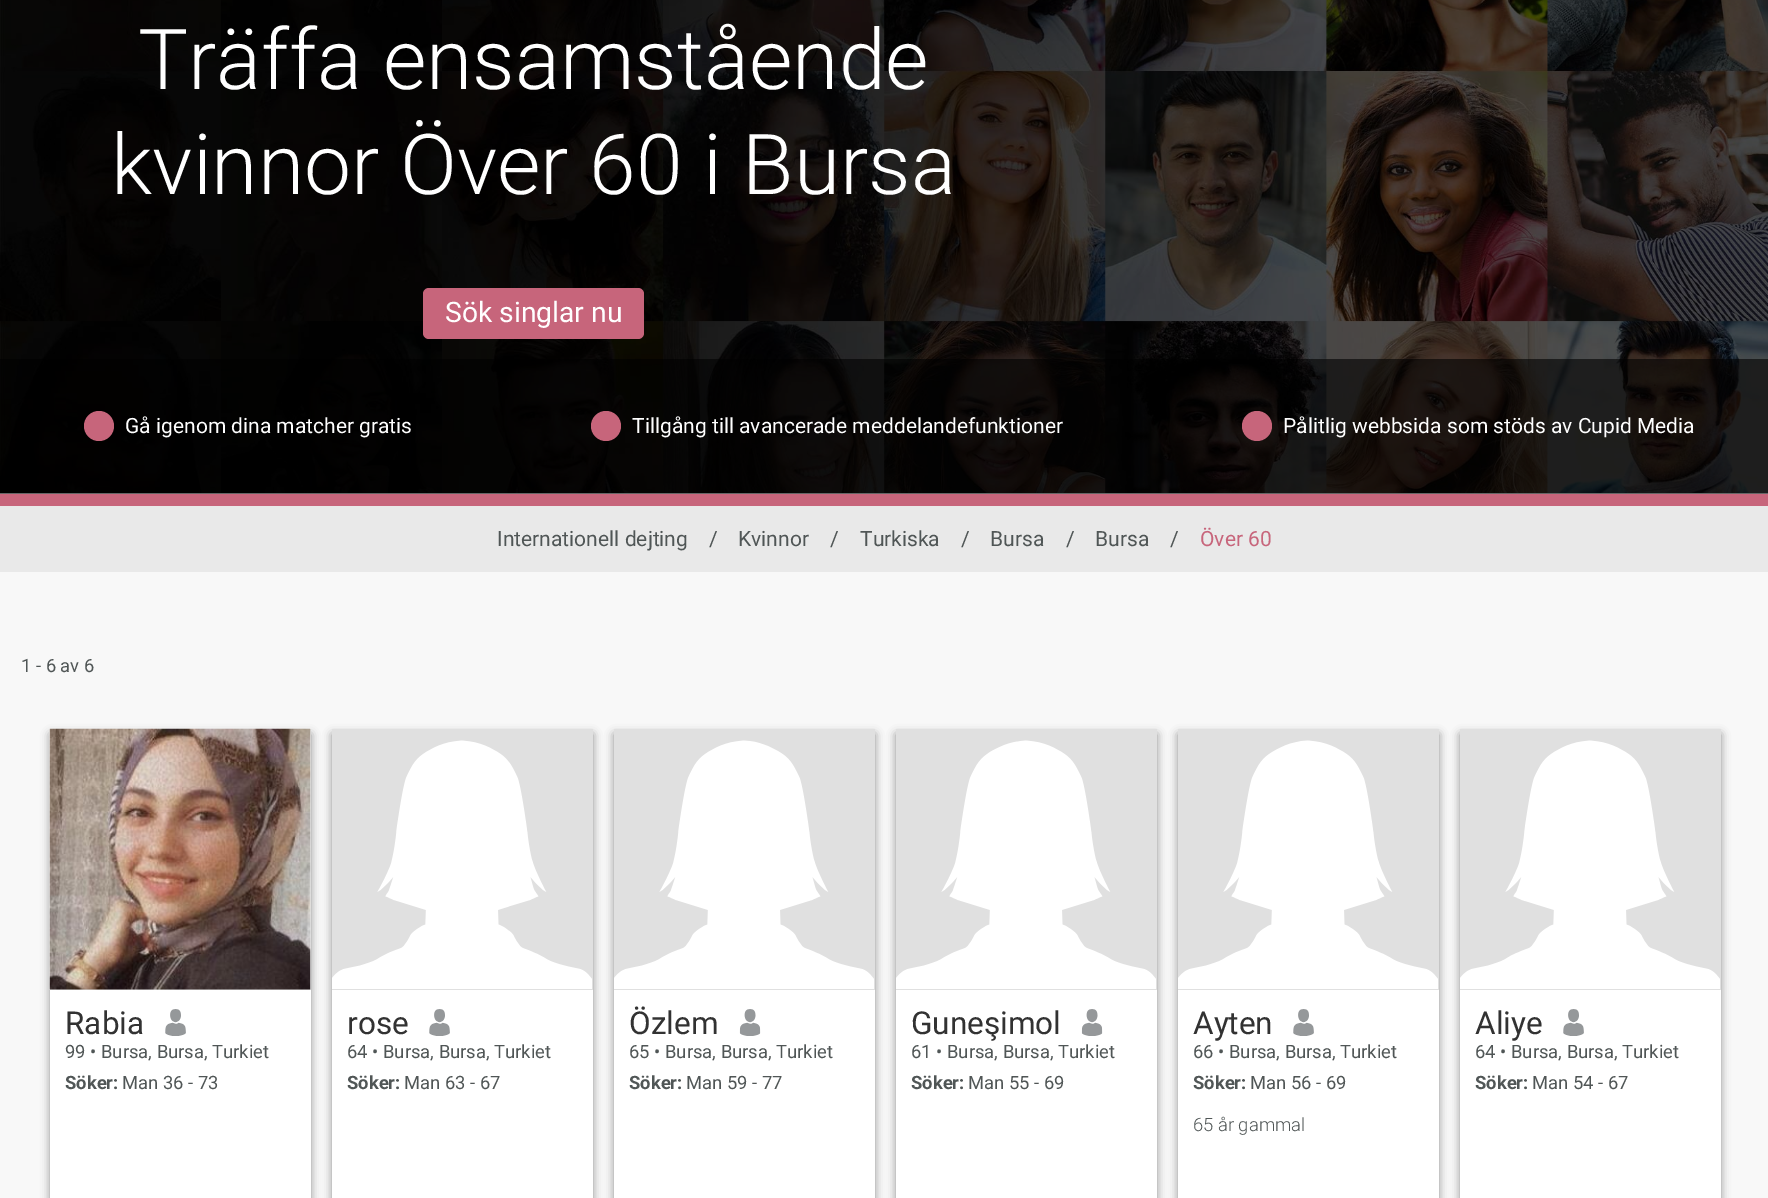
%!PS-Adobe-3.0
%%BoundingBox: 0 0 1768 1198
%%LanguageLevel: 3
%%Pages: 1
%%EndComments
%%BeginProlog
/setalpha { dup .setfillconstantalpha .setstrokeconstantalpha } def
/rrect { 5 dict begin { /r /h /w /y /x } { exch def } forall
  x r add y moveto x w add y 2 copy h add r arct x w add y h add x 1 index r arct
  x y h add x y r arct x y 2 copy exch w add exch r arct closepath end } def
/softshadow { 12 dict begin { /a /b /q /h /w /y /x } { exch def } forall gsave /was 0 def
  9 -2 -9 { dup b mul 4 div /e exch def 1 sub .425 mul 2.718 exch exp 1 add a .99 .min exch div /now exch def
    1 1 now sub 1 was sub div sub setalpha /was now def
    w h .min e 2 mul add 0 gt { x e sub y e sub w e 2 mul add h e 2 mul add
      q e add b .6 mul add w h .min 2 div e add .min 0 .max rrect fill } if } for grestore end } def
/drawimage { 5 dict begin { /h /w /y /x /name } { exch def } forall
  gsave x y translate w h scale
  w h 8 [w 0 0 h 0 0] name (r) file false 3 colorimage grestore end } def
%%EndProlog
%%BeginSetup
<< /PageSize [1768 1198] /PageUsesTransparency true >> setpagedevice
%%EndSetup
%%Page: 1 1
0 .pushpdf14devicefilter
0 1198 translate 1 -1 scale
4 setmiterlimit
0.973 setgray
0 0 1768 1198 rectfill
1 setgray
0 493 1768 1 rectfill
(images/1.raw) 0 0 1768 493 drawimage
0.78 0.396 0.482 setrgbcolor
423 288 221 51 6 rrect fill
0.6 setalpha
0 setgray
0 359 1768 135 rectfill
1 setalpha
0.78 0.396 0.482 setrgbcolor
newpath 99 426 15 0 360 arc closepath fill
newpath 606 426 15 0 360 arc closepath fill
newpath 1257 426 15 0 360 arc closepath fill
0 494 1768 12 rectfill
0.914 setgray
0 506 1768 66 rectfill
0 setgray
50 734 261 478 0 4.5 0.4 softshadow
1 setgray
50 990 261 208 rectfill
0.878 setgray
50 729 261 261 rectfill
(images/2.raw) 49 728 262 262 drawimage
(images/3.raw) 165 1009 21 27 drawimage
0 setgray
332 734 261 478 0 4.5 0.4 softshadow
1 setgray
332 990 261 208 rectfill
0.878 setgray
332 729 261 261 rectfill
(images/4.raw) 332 740 260 249 drawimage
(images/3.raw) 429 1009 21 27 drawimage
0 setgray
614 734 261 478 0 4.5 0.4 softshadow
1 setgray
614 990 261 208 rectfill
0.878 setgray
614 729 261 261 rectfill
(images/5.raw) 614 740 260 249 drawimage
(images/6.raw) 739 1009 22 27 drawimage
0 setgray
896 734 261 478 0 4.5 0.4 softshadow
1 setgray
896 990 261 208 rectfill
0.878 setgray
896 729 261 261 rectfill
(images/7.raw) 896 740 260 249 drawimage
(images/6.raw) 1081 1009 22 27 drawimage
0 setgray
1178 734 261 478 0 4.5 0.4 softshadow
1 setgray
1178 990 261 208 rectfill
0.878 setgray
1178 729 261 261 rectfill
(images/8.raw) 1178 740 260 249 drawimage
(images/3.raw) 1293 1009 21 27 drawimage
0 setgray
1460 734 261 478 0 4.5 0.4 softshadow
1 setgray
1460 990 261 208 rectfill
0.878 setgray
1460 729 261 261 rectfill
(images/9.raw) 1460 740 260 249 drawimage
(images/3.raw) 1563 1009 21 27 drawimage
/Roboto-Light [84 0 0 -84 0 0] selectfont
1 setgray
138 89 moveto (Träffa ensamstående) show
111 194 moveto (kvinnor Över 60 i Bursa) show
/Roboto-Regular [28.25 0 0 -28.25 0 0] selectfont
445 322 moveto (Sök singlar nu) show
/Roboto-Regular [21 0 0 -21 0 0] selectfont
125 433 moveto (Gå igenom dina matcher gratis) show
632 433 moveto (Tillgång till avancerade meddelandefunktioner) show
1283 433 moveto (Pålitlig webbsida som stöds av Cupid Media) show
0.314 0.337 0.337 setrgbcolor
497 546 moveto (Internationell dejting) show
709 546 moveto (/) show
738 546 moveto (Kvinnor) show
830 546 moveto (/) show
860 546 moveto (Turkiska) show
961 546 moveto (/) show
990 546 moveto (Bursa) show
1066 546 moveto (/) show
1095 546 moveto (Bursa) show
1170 546 moveto (/) show
0.78 0.396 0.482 setrgbcolor
1200 546 moveto (Över 60) show
/Roboto-Regular [18.4 0 0 -18.4 0 0] selectfont
0.314 0.337 0.337 setrgbcolor
21 672 moveto (1 - 6 av 6) show
/Roboto-Regular [31.5 0 0 -31.5 0 0] selectfont
0.196 setgray
65 1034 moveto (Rabia) show
/Roboto-Regular [18.4 0 0 -18.4 0 0] selectfont
0.314 0.337 0.337 setrgbcolor
65 1058 moveto (99 • Bursa, Bursa, Turkiet) show
/Roboto-Bold [18.4 0 0 -18.4 0 0] selectfont
65 1089 moveto (Söker:) show
/Roboto-Regular [18.4 0 0 -18.4 0 0] selectfont
122 1089 moveto (Man 36 - 73) show
/Roboto-Regular [31.5 0 0 -31.5 0 0] selectfont
0.196 setgray
347 1034 moveto (rose) show
/Roboto-Regular [18.4 0 0 -18.4 0 0] selectfont
0.314 0.337 0.337 setrgbcolor
347 1058 moveto (64 • Bursa, Bursa, Turkiet) show
/Roboto-Bold [18.4 0 0 -18.4 0 0] selectfont
347 1089 moveto (Söker:) show
/Roboto-Regular [18.4 0 0 -18.4 0 0] selectfont
404 1089 moveto (Man 63 - 67) show
/Roboto-Regular [31.5 0 0 -31.5 0 0] selectfont
0.196 setgray
629 1034 moveto (Özlem) show
/Roboto-Regular [18.4 0 0 -18.4 0 0] selectfont
0.314 0.337 0.337 setrgbcolor
629 1058 moveto (65 • Bursa, Bursa, Turkiet) show
/Roboto-Bold [18.4 0 0 -18.4 0 0] selectfont
629 1089 moveto (Söker:) show
/Roboto-Regular [18.4 0 0 -18.4 0 0] selectfont
686 1089 moveto (Man 59 - 77) show
/Roboto-Regular [31.5 0 0 -31.5 0 0] selectfont
0.196 setgray
911 1034 moveto (Guneşimol) show
/Roboto-Regular [18.4 0 0 -18.4 0 0] selectfont
0.314 0.337 0.337 setrgbcolor
911 1058 moveto (61 • Bursa, Bursa, Turkiet) show
/Roboto-Bold [18.4 0 0 -18.4 0 0] selectfont
911 1089 moveto (Söker:) show
/Roboto-Regular [18.4 0 0 -18.4 0 0] selectfont
968 1089 moveto (Man 55 - 69) show
/Roboto-Regular [31.5 0 0 -31.5 0 0] selectfont
0.196 setgray
1193 1034 moveto (Ayten) show
/Roboto-Regular [18.4 0 0 -18.4 0 0] selectfont
0.314 0.337 0.337 setrgbcolor
1193 1058 moveto (66 • Bursa, Bursa, Turkiet) show
/Roboto-Bold [18.4 0 0 -18.4 0 0] selectfont
1193 1089 moveto (Söker:) show
/Roboto-Regular [18.4 0 0 -18.4 0 0] selectfont
1250 1089 moveto (Man 56 - 69) show
/Roboto-Light [18.4 0 0 -18.4 0 0] selectfont
1193 1131 moveto (65 år gammal) show
/Roboto-Regular [31.5 0 0 -31.5 0 0] selectfont
0.196 setgray
1475 1034 moveto (Aliye) show
/Roboto-Regular [18.4 0 0 -18.4 0 0] selectfont
0.314 0.337 0.337 setrgbcolor
1475 1058 moveto (64 • Bursa, Bursa, Turkiet) show
/Roboto-Bold [18.4 0 0 -18.4 0 0] selectfont
1475 1089 moveto (Söker:) show
/Roboto-Regular [18.4 0 0 -18.4 0 0] selectfont
1532 1089 moveto (Man 54 - 67) show
.poppdf14devicefilter showpage
%%EOF
